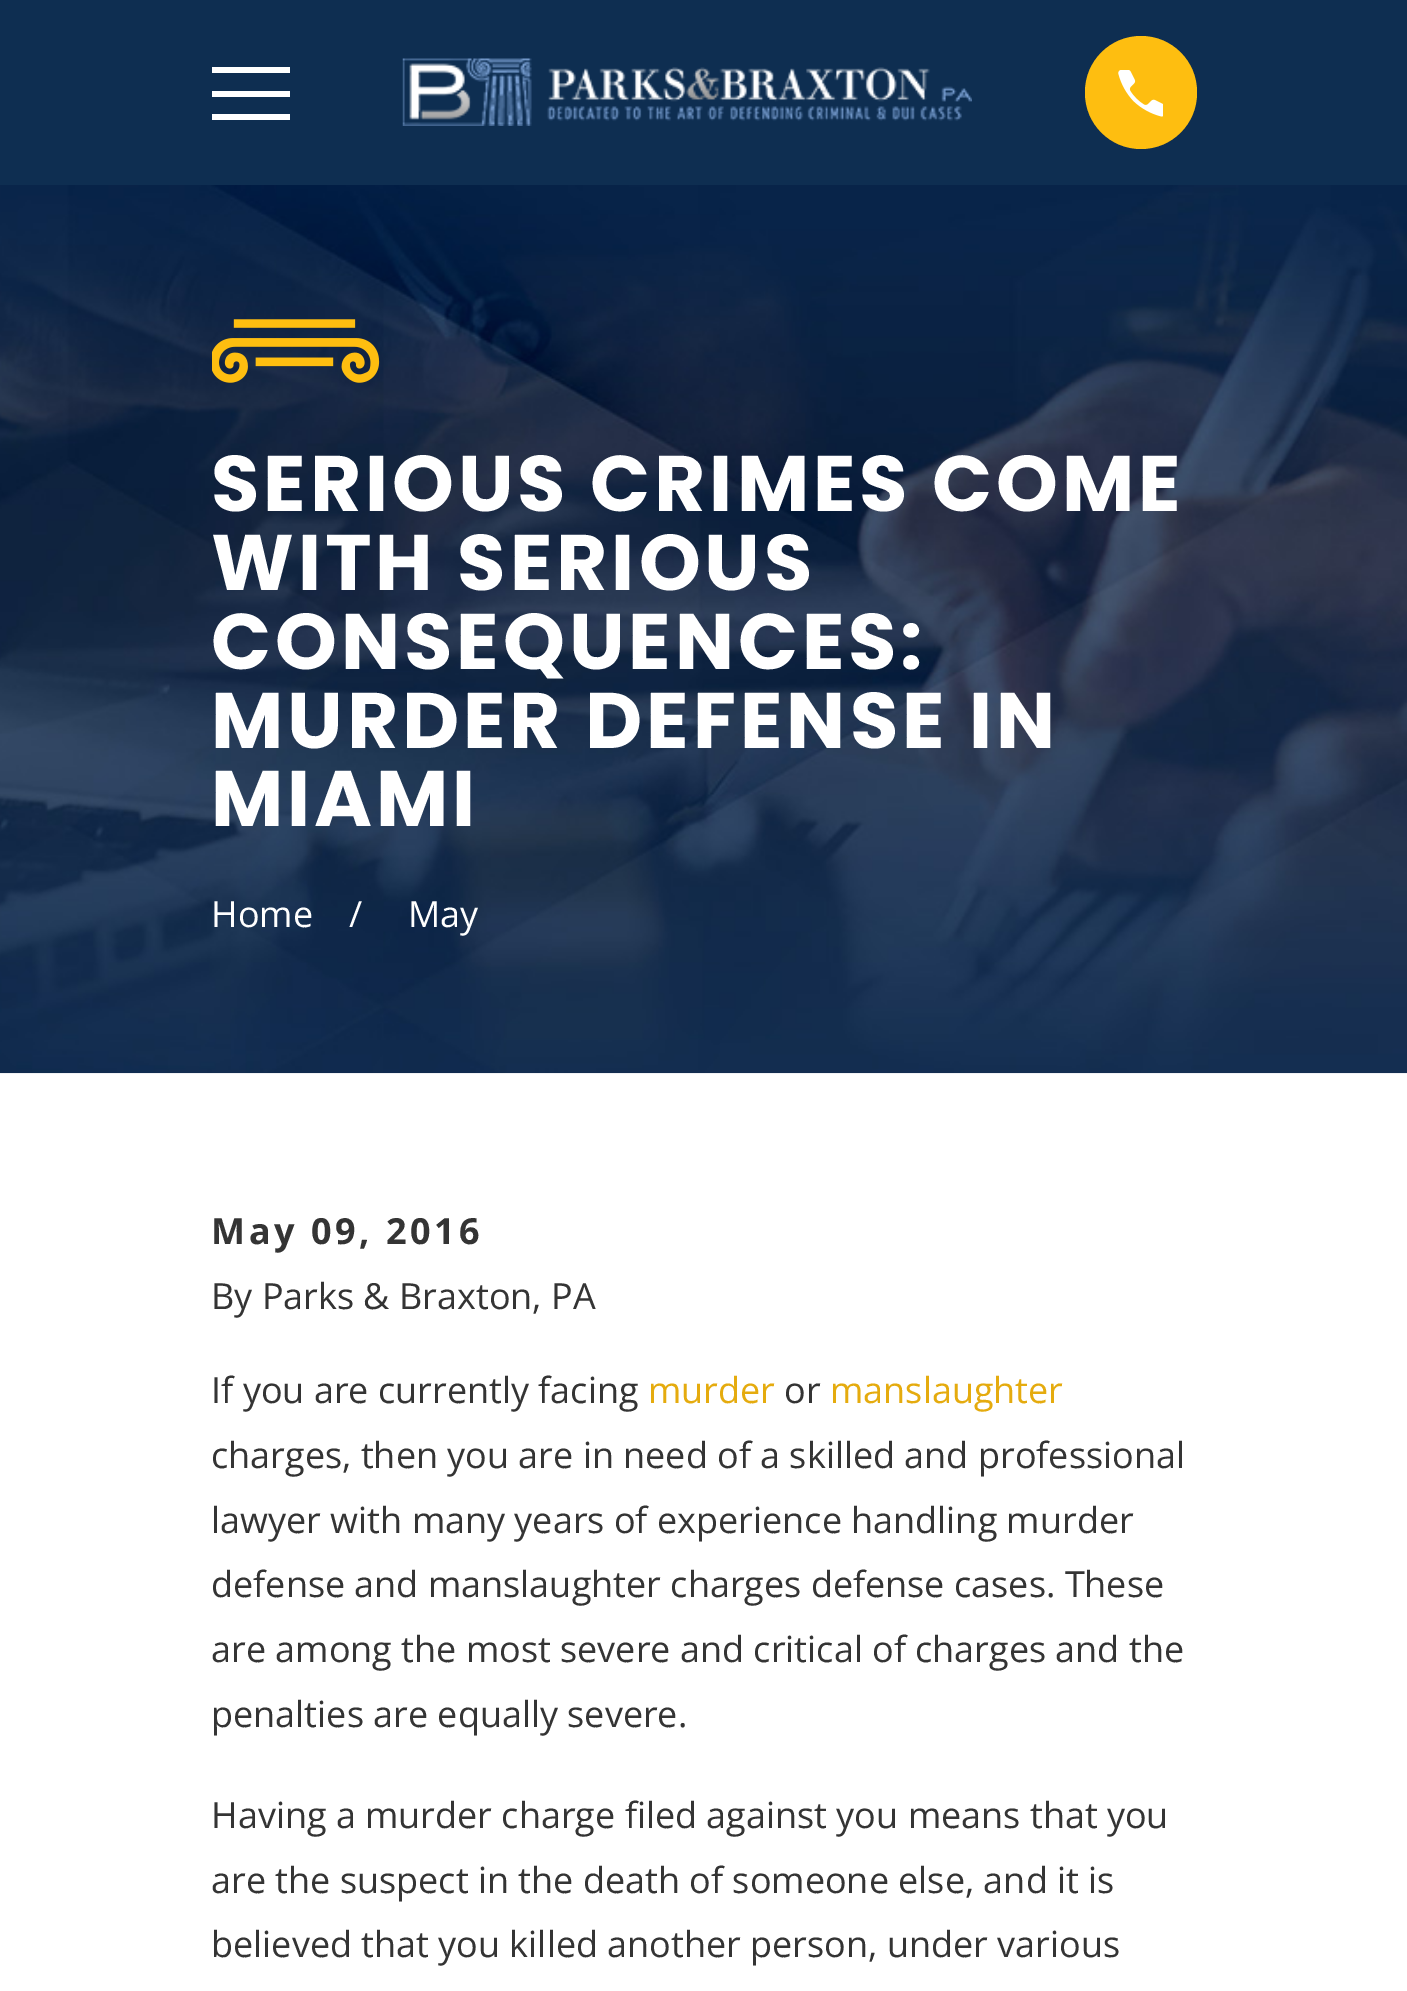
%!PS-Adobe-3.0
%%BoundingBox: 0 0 1407 1991
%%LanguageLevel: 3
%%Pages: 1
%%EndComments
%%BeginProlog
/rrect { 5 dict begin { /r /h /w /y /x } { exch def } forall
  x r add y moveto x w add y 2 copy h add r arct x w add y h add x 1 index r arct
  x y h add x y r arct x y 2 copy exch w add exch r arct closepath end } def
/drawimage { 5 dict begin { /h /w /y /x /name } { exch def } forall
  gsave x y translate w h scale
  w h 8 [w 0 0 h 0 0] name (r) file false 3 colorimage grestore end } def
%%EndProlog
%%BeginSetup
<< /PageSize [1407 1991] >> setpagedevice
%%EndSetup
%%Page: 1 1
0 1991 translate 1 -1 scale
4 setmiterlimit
1 setgray
0 0 1407 1991 rectfill
0.055 0.18 0.318 setrgbcolor
0 0 1407 185 rectfill
gsave
212 54 78 79 rectclip
1 setgray
newpath 212 67 moveto 212 73 lineto 291 73 lineto 291 67 lineto closepath 212 91 moveto 212 97 lineto 291 97 lineto 291 91 lineto closepath 212 114 moveto 212 120 lineto 291 120 lineto 291 114 lineto closepath fill
grestore
(images/1.raw) 402 58 570 68 drawimage
0.996 0.745 0.063 setrgbcolor
1085 36 112 113 56 rrect fill
(images/2.raw) 1118 70 45 47 drawimage
(images/3.raw) 0 185 1407 889 drawimage
(images/4.raw) 212 319 168 64 drawimage
/Poppins-Bold [78.75 0 0 -78.75 0 0] selectfont
1 setgray
211 511 moveto 3.9 0 (SERIOUS CRIMES COME) ashow
211 590 moveto 3.9 0 (WITH SERIOUS) ashow
211 669 moveto 3.9 0 (CONSEQUENCES:) ashow
211 748 moveto 3.9 0 (MURDER DEFENSE IN) ashow
211 826 moveto 3.9 0 (MIAMI) ashow
/OpenSans-Regular [36 0 0 -36 0 0] selectfont
211 927 moveto (Home) show
349 927 moveto (/) show
408 927 moveto (May) show
/OpenSans-Bold [36 0 0 -36 0 0] selectfont
0.204 setgray
211 1244 moveto 3.6 0 (May 09, 2016) ashow
/OpenSans-Regular [36 0 0 -36 0 0] selectfont
211 1309 moveto (By Parks & Braxton, PA) show
211 1403 moveto (If you are currently facing) show
0.898 0.671 0.055 setrgbcolor
648 1403 moveto (murder) show
0.204 setgray
784 1403 moveto (or) show
0.898 0.671 0.055 setrgbcolor
830 1403 moveto (manslaughter) show
0.204 setgray
211 1468 moveto (charges, then you are in need of a skilled and professional) show
211 1533 moveto (lawyer with many years of experience handling murder) show
211 1597 moveto (defense and manslaughter charges defense cases. These) show
211 1662 moveto (are among the most severe and critical of charges and the) show
211 1727 moveto (penalties are equally severe.) show
211 1828 moveto (Having a murder charge filed against you means that you) show
211 1893 moveto (are the suspect in the death of someone else, and it is) show
211 1957 moveto (believed that you killed another person, under various) show
showpage
%%EOF
